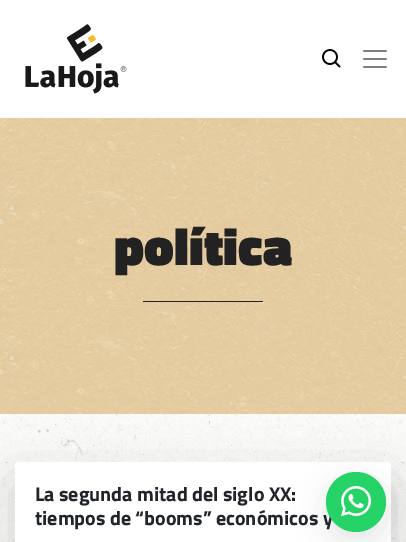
%!PS-Adobe-3.0
%%BoundingBox: 0 0 406 542
%%LanguageLevel: 3
%%Pages: 1
%%EndComments
%%BeginProlog
/setalpha { dup .setfillconstantalpha .setstrokeconstantalpha } def
/rrect { 5 dict begin { /r /h /w /y /x } { exch def } forall
  x r add y moveto x w add y 2 copy h add r arct x w add y h add x 1 index r arct
  x y h add x y r arct x y 2 copy exch w add exch r arct closepath end } def
/softshadow { 12 dict begin { /a /b /q /h /w /y /x } { exch def } forall gsave /was 0 def
  9 -2 -9 { dup b mul 4 div /e exch def 1 sub .425 mul 2.718 exch exp 1 add a .99 .min exch div /now exch def
    1 1 now sub 1 was sub div sub setalpha /was now def
    w h .min e 2 mul add 0 gt { x e sub y e sub w e 2 mul add h e 2 mul add
      q e add b .6 mul add w h .min 2 div e add .min 0 .max rrect fill } if } for grestore end } def
/drawimage { 5 dict begin { /h /w /y /x /name } { exch def } forall
  gsave x y translate w h scale
  w h 8 [w 0 0 h 0 0] name (r) file false 3 colorimage grestore end } def
%%EndProlog
%%BeginSetup
<< /PageSize [406 542] /PageUsesTransparency true >> setpagedevice
%%EndSetup
%%Page: 1 1
0 .pushpdf14devicefilter
0 542 translate 1 -1 scale
4 setmiterlimit
1 setgray
0 0 406 542 rectfill
(images/1.raw) 0 414 406 128 drawimage
(images/2.raw) 25 24 102 70 drawimage
(images/3.raw) 322 49 19 19 drawimage
(images/4.raw) 363 50 24 18 drawimage
0 setgray
14 481 378 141 5 25 0.17 softshadow
(images/5.raw) 0 118 406 296 drawimage
0.133 setgray
143 301 120 1 rectfill
1 setgray
15 462 376 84 4 rrect fill
0 setgray
326 482 60 60 30 15 0.1 softshadow
/TitilliumWeb-Black [53 0 0 -53 0 0] selectfont
0.133 setgray
114 265 moveto (política) show
/TitilliumWeb-Bold [20 0 0 -20 0 0] selectfont
0.129 0.145 0.161 setrgbcolor
35 501 moveto (La segunda mitad del siglo XX:) show
35 525 moveto (tiempos de “booms” económicos y) show
0.145 0.827 0.4 setrgbcolor
newpath 356 502 30 0 360 arc closepath fill
(images/6.raw) 341 486 30 31 drawimage
.poppdf14devicefilter showpage
%%EOF
